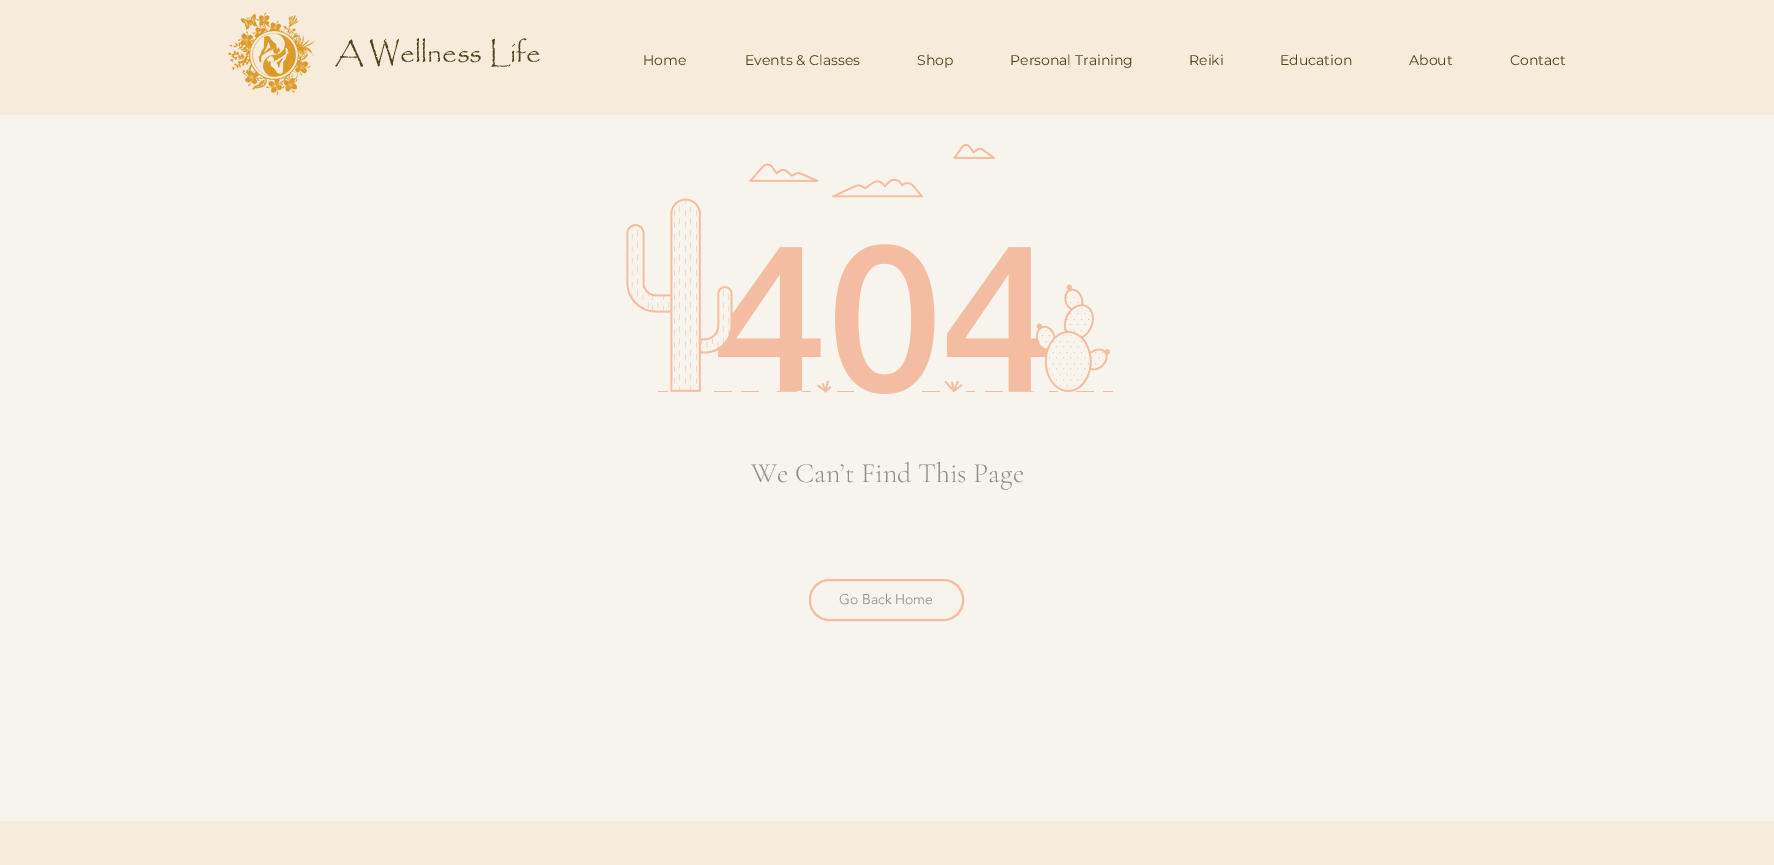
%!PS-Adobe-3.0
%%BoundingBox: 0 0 1774 865
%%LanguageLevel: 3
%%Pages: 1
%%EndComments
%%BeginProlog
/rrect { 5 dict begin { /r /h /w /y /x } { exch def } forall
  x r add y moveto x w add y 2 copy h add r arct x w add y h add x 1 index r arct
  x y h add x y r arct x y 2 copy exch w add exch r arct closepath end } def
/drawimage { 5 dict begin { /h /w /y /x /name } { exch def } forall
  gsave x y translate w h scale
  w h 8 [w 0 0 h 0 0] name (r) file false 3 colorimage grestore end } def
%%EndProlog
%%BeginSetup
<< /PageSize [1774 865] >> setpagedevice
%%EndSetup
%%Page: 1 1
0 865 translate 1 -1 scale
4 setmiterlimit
0.969 0.957 0.929 setrgbcolor
0 0 1774 865 rectfill
0.969 0.925 0.863 setrgbcolor
0 0 1774 115 rectfill
(images/1.raw) 228 12 87 83 drawimage
(images/2.raw) 626 144 487 250 drawimage
0.957 0.737 0.627 setrgbcolor
2 setlinewidth
810 580 153 40 19 rrect stroke
0.969 0.925 0.863 setrgbcolor
0 821 1774 44 rectfill
/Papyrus-Regular [29 0 0 -29 0 0] selectfont
0.314 0.259 0.094 setrgbcolor
335 62 moveto (A Wellness Life) show
/Montserrat-Regular [14 0 0 -14 0 0] selectfont
643 65 moveto (Home) show
745 65 moveto (Events & Classes) show
917 65 moveto (Shop) show
1010 65 moveto (Personal Training) show
1189 65 moveto (Reiki) show
1280 65 moveto (Education) show
1409 65 moveto (About) show
1510 65 moveto (Contact) show
/CormorantGaramond-Light [28 0 0 -28 0 0] selectfont
0.569 0.557 0.533 setrgbcolor
751 482 moveto (We Can’t Find This Page) show
/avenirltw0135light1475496-Light [14 0 0 -14 0 0] selectfont
839 604 moveto (Go Back Home) show
showpage
%%EOF
